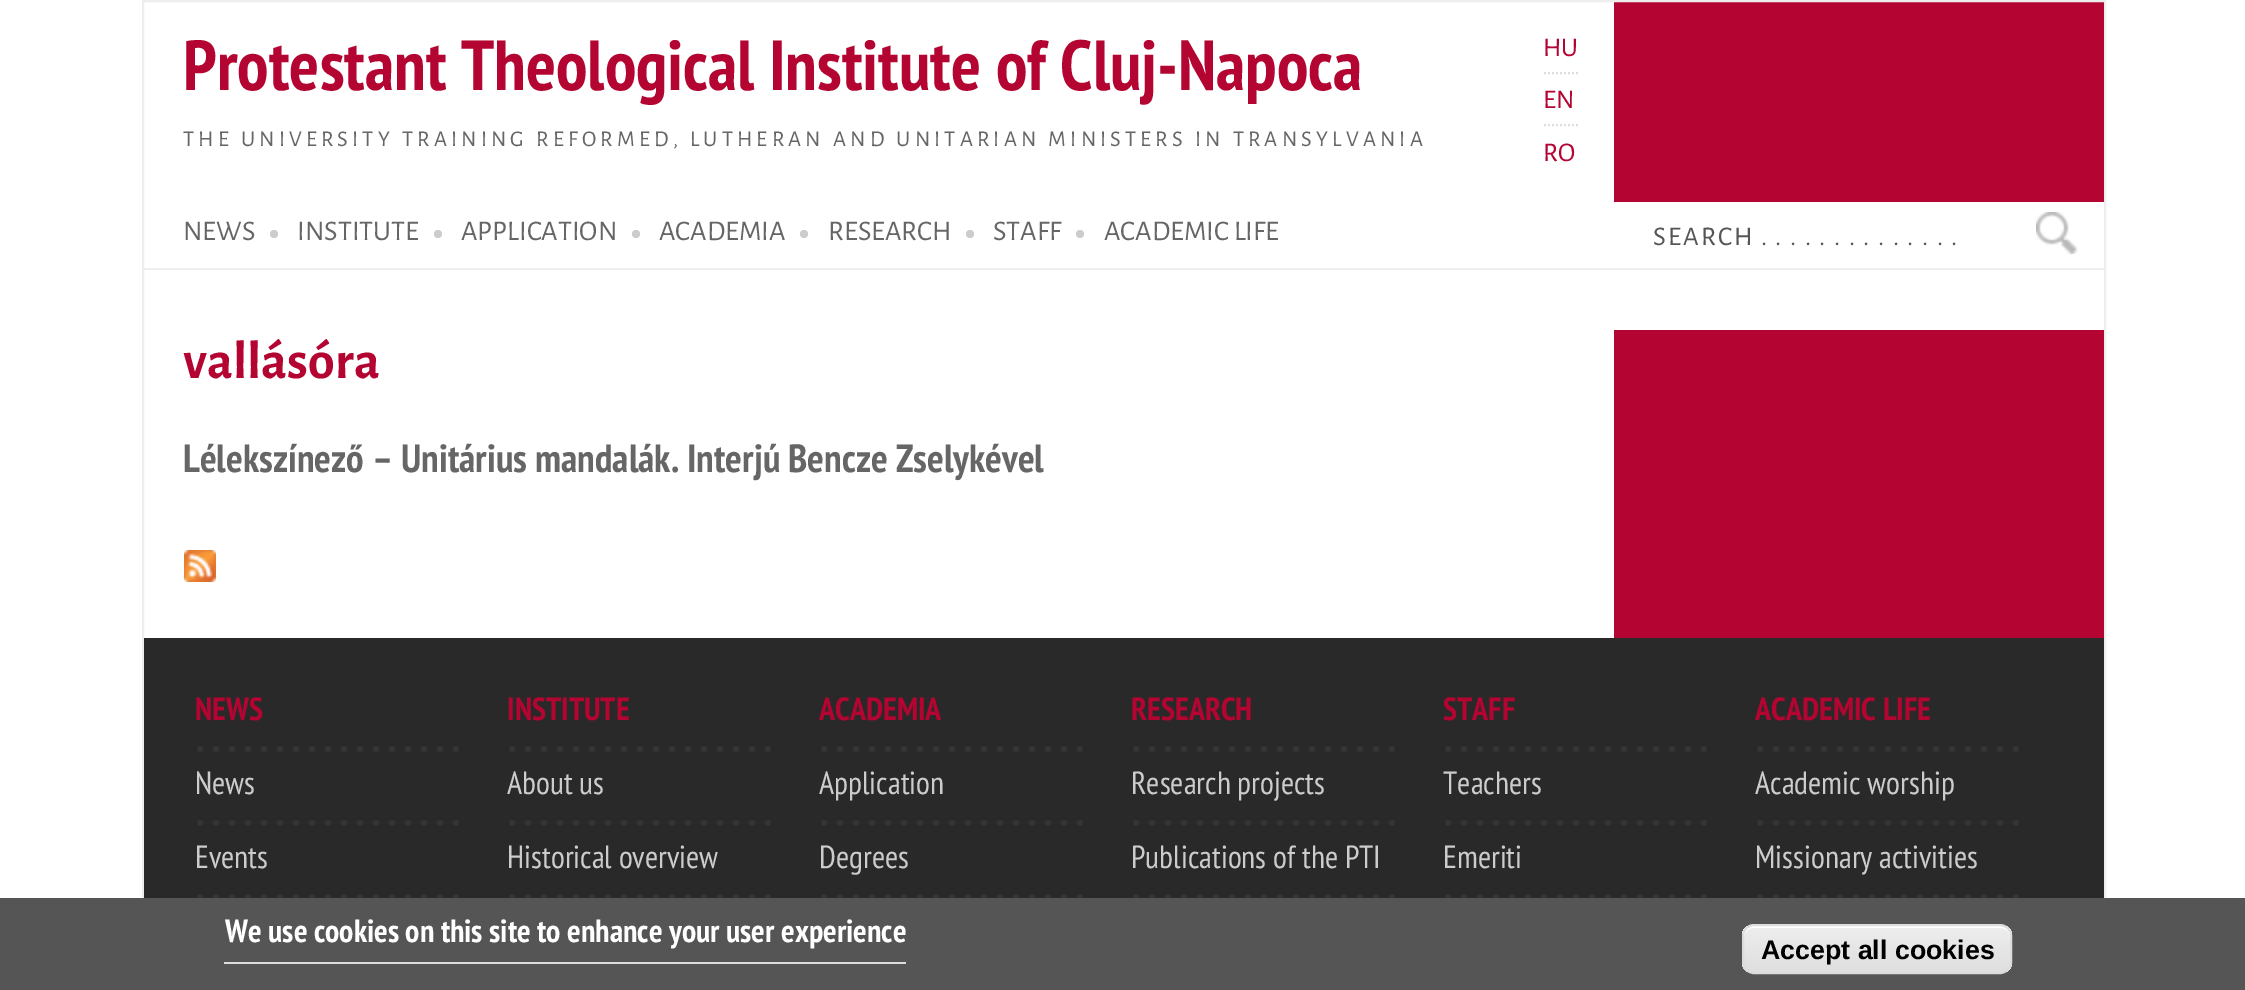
%!PS-Adobe-3.0
%%BoundingBox: 0 0 2245 990
%%LanguageLevel: 3
%%Pages: 1
%%EndComments
%%BeginProlog
/rrect { 5 dict begin { /r /h /w /y /x } { exch def } forall
  x r add y moveto x w add y 2 copy h add r arct x w add y h add x 1 index r arct
  x y h add x y r arct x y 2 copy exch w add exch r arct closepath end } def
/drawimage { 5 dict begin { /h /w /y /x /name } { exch def } forall
  gsave x y translate w h scale
  w h 8 [w 0 0 h 0 0] name (r) file false 3 colorimage grestore end } def
%%EndProlog
%%BeginSetup
<< /PageSize [2245 990] >> setpagedevice
%%EndSetup
%%Page: 1 1
0 990 translate 1 -1 scale
4 setmiterlimit
1 setgray
0 0 2245 990 rectfill
0.706 0.016 0.192 setrgbcolor
1614 2 490 636 rectfill
0.933 setgray
2 setlinewidth
143 1 1962 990 rectstroke
0.867 setgray
[2 2] 0 setdash
newpath 1544 73 moveto 1578 73 lineto 1544 125 moveto 1578 125 lineto stroke
1 setgray
1614 202 490 128 rectfill
0.8 setgray
newpath 274 234 4 0 360 arc closepath fill
newpath 438 234 4 0 360 arc closepath fill
newpath 636 234 4 0 360 arc closepath fill
newpath 804 234 4 0 360 arc closepath fill
newpath 970 234 4 0 360 arc closepath fill
newpath 1080 234 4 0 360 arc closepath fill
0.933 setgray
144 268 1960 2 rectfill
(images/1.raw) 2036 212 42 42 drawimage
(images/2.raw) 184 550 32 32 drawimage
0.161 setgray
144 638 1960 260 rectfill
(images/3.raw) 197 746 262 6 drawimage
(images/3.raw) 197 820 262 6 drawimage
(images/4.raw) 197 894 262 4 drawimage
(images/3.raw) 509 746 262 6 drawimage
(images/3.raw) 509 820 262 6 drawimage
(images/4.raw) 509 894 262 4 drawimage
(images/3.raw) 821 746 262 6 drawimage
(images/3.raw) 821 820 262 6 drawimage
(images/4.raw) 821 894 262 4 drawimage
(images/3.raw) 1133 746 262 6 drawimage
(images/3.raw) 1133 820 262 6 drawimage
(images/4.raw) 1133 894 262 4 drawimage
(images/3.raw) 1445 746 262 6 drawimage
(images/3.raw) 1445 820 262 6 drawimage
(images/4.raw) 1445 894 262 4 drawimage
(images/3.raw) 1757 746 262 6 drawimage
(images/3.raw) 1757 820 262 6 drawimage
(images/4.raw) 1757 894 262 4 drawimage
0.333 setgray
0 898 2245 92 rectfill
0.867 setgray
224 962 682 2 rectfill
gsave
1742 924 270 50 12 rrect clip newpath
gsave newpath 1742 926 moveto 2012 926 lineto 2012 972 lineto 1742 972 lineto closepath clip newpath
<< /ShadingType 2 /ColorSpace /DeviceRGB /Coords [1877 926 1877 972] /Extend [true true] /Function << /FunctionType 3 /Domain [0 1] /Functions [<< /FunctionType 2 /Domain [0 1] /C0 [0.929 0.929 0.929] /C1 [0.929 0.929 0.929] /N 1 >> << /FunctionType 2 /Domain [0 1] /C0 [0.929 0.929 0.929] /C1 [0.875 0.875 0.875] /N 1 >>] /Bounds [0.05] /Encode [0 1 0 1] >> >> shfill grestore
grestore
1 setgray
newpath 1754 928 moveto 2000 928 lineto 2006 928 2010 932 2010 938 curveto 2010 936 lineto 2010 930 2006 926 2000 926 curveto 1754 926 lineto 1748 926 1744 930 1744 936 curveto 1744 938 lineto 1744 932 1748 928 1754 928 curveto closepath fill
0.863 setgray
[] 0 setdash
1743 925 268 48 11 rrect stroke
/PTSansNarrow-Bold [70.6 0 0 -70.6 0 0] selectfont
0.706 0.016 0.192 setrgbcolor
183 90 moveto (Protestant Theological Institute of Cluj-Napoca) show
/AlegreyaSans-Regular [22.5 0 0 -22.5 0 0] selectfont
0.4 setgray
183 146 moveto 4.2 0 (THE UNIVERSITY TRAINING REFORMED, LUTHERAN AND UNITARIAN MINISTERS IN TRANSYLVANIA) ashow
/AlegreyaSans-Regular [27 0 0 -27 0 0] selectfont
0.706 0.016 0.192 setrgbcolor
1543 56 moveto (HU) show
1543 108 moveto (EN) show
1543 161 moveto (RO) show
/AlegreyaSans-Regular [28.5 0 0 -28.5 0 0] selectfont
0.4 setgray
183 240 moveto (NEWS) show
297 240 moveto (INSTITUTE) show
461 240 moveto (APPLICATION) show
659 240 moveto (ACADEMIA) show
828 240 moveto (RESEARCH) show
993 240 moveto (STAFF) show
1104 240 moveto (ACADEMIC LIFE) show
/AlegreyaSans-Regular [27.1 0 0 -27.1 0 0] selectfont
0.333 setgray
1653 245 moveto 2 0 (SEARCH . . . . . . . . . . . . . .) ashow
/AlegreyaSans-Bold [54 0 0 -54 0 0] selectfont
0.706 0.016 0.192 setrgbcolor
183 378 moveto (vallásóra) show
/PTSansNarrow-Bold [39.3 0 0 -39.3 0 0] selectfont
0.4 setgray
183 472 moveto (Lélekszínező – Unitárius mandalák. Interjú Bencze Zselykével) show
/PTSansNarrow-Bold [32 0 0 -32 0 0] selectfont
0.706 0.016 0.192 setrgbcolor
195 720 moveto (NEWS) show
/PTSansNarrow-Regular [32 0 0 -32 0 0] selectfont
0.8 setgray
195 794 moveto (News) show
195 868 moveto (Events) show
/PTSansNarrow-Bold [32 0 0 -32 0 0] selectfont
0.706 0.016 0.192 setrgbcolor
507 720 moveto (INSTITUTE) show
/PTSansNarrow-Regular [32 0 0 -32 0 0] selectfont
0.8 setgray
507 794 moveto (About us) show
507 868 moveto (Historical overview) show
/PTSansNarrow-Bold [32 0 0 -32 0 0] selectfont
0.706 0.016 0.192 setrgbcolor
819 720 moveto (ACADEMIA) show
/PTSansNarrow-Regular [32 0 0 -32 0 0] selectfont
0.8 setgray
819 794 moveto (Application) show
819 868 moveto (Degrees) show
/PTSansNarrow-Bold [32 0 0 -32 0 0] selectfont
0.706 0.016 0.192 setrgbcolor
1131 720 moveto (RESEARCH) show
/PTSansNarrow-Regular [32 0 0 -32 0 0] selectfont
0.8 setgray
1131 794 moveto (Research projects) show
1131 868 moveto (Publications of the PTI) show
/PTSansNarrow-Bold [32 0 0 -32 0 0] selectfont
0.706 0.016 0.192 setrgbcolor
1443 720 moveto (STAFF) show
/PTSansNarrow-Regular [32 0 0 -32 0 0] selectfont
0.8 setgray
1443 794 moveto (Teachers) show
1443 868 moveto (Emeriti) show
/PTSansNarrow-Bold [32 0 0 -32 0 0] selectfont
0.706 0.016 0.192 setrgbcolor
1755 720 moveto (ACADEMIC LIFE) show
/PTSansNarrow-Regular [32 0 0 -32 0 0] selectfont
0.8 setgray
1755 794 moveto (Academic worship) show
1755 868 moveto (Missionary activities) show
/PTSansNarrow-Bold [32 0 0 -32 0 0] selectfont
1 setgray
225 942 moveto (We use cookies on this site to enhance your user experience) show
/LiberationSans-Bold [26.75 0 0 -26.75 0 0] selectfont
0 setgray
1761 959 moveto (Accept all cookies) show
showpage
%%EOF
